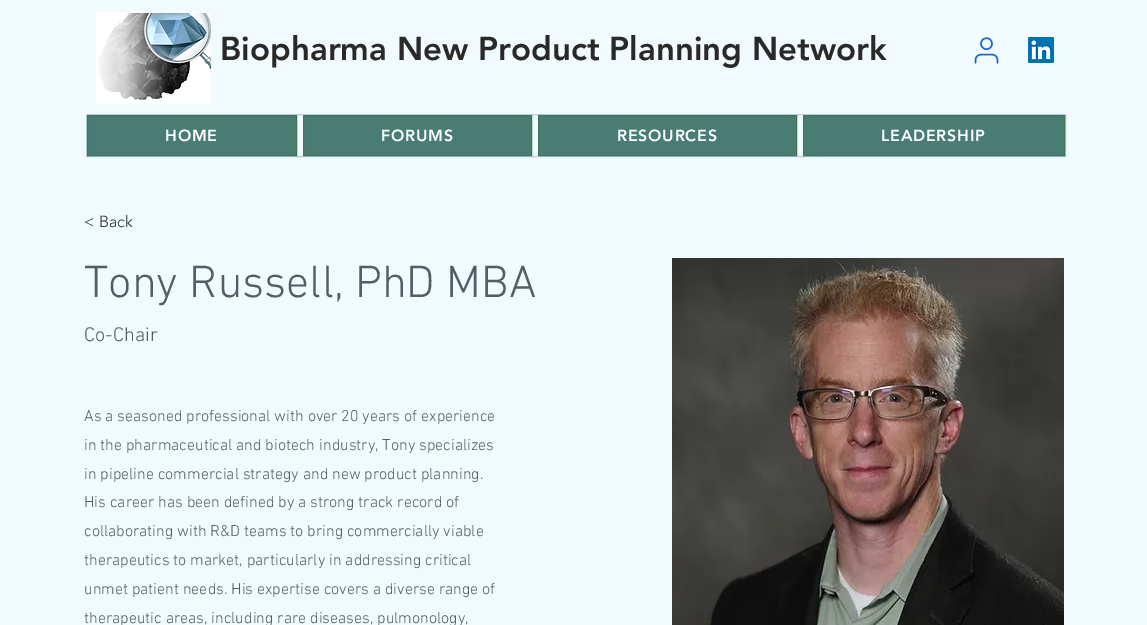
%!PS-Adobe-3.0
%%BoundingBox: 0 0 1147 625
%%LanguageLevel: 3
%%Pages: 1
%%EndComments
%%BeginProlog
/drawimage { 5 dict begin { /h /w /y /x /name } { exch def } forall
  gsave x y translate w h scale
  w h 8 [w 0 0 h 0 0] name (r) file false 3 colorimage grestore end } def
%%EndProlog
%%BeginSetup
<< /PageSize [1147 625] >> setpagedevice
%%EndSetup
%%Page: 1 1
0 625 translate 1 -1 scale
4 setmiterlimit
0.941 0.98 1 setrgbcolor
0 0 1147 625 rectfill
(images/1.raw) 96 12 115 92 drawimage
(images/2.raw) 974 37 25 27 drawimage
(images/3.raw) 1028 37 26 26 drawimage
0.714 0.804 0.882 setrgbcolor
86.5 114.5 979 42 rectstroke
0.286 0.49 0.451 setrgbcolor
newpath 87.5 115.5 moveto 296.5 115.5 lineto 296.5 155.5 lineto 87.5 155.5 lineto closepath gsave fill grestore
0.247 0.463 0.322 setrgbcolor
stroke
0.286 0.49 0.451 setrgbcolor
newpath 303.5 115.5 moveto 531.5 115.5 lineto 531.5 155.5 lineto 303.5 155.5 lineto closepath gsave fill grestore
0.247 0.463 0.322 setrgbcolor
stroke
0.286 0.49 0.451 setrgbcolor
newpath 538.5 115.5 moveto 796.5 115.5 lineto 796.5 155.5 lineto 538.5 155.5 lineto closepath gsave fill grestore
0.247 0.463 0.322 setrgbcolor
stroke
0.286 0.49 0.451 setrgbcolor
newpath 803.5 115.5 moveto 1064.5 115.5 lineto 1064.5 155.5 lineto 803.5 155.5 lineto closepath gsave fill grestore
0.247 0.463 0.322 setrgbcolor
stroke
(images/4.raw) 672 258 392 367 drawimage
/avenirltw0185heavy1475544-Black [33 0 0 -33 0 0] selectfont
0.161 setgray
220 60 moveto (Biopharma New Product Planning Network) show
/avenirltw0185heavy1475544-Black [16 0 0 -16 0 0] selectfont
1 setgray
165 141 moveto 0.75 0 (HOME) ashow
381 141 moveto 0.75 0 (FORUMS) ashow
617 141 moveto 0.75 0 (RESOURCES) ashow
881 141 moveto 0.75 0 (LEADERSHIP) ashow
/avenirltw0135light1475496-Light [16 0 0 -16 0 0] selectfont
0.161 0.184 0.2 setrgbcolor
84 227 moveto (< Back) show
/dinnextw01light-Light [46 0 0 -46 0 0] selectfont
0.318 0.369 0.396 setrgbcolor
84 297 moveto (Tony Russell, PhD MBA) show
/dinnextw01light-Light [20 0 0 -20 0 0] selectfont
84 341 moveto (Co-Chair) show
/dinnextw01light-Light [16 0 0 -16 0 0] selectfont
84 421 moveto (As a seasoned professional with over 20 years of experience) show
84 450 moveto (in the pharmaceutical and biotech industry, Tony specializes) show
84 479 moveto (in pipeline commercial strategy and new product planning.) show
84 507 moveto (His career has been defined by a strong track record of) show
84 536 moveto (collaborating with R&D teams to bring commercially viable) show
84 565 moveto (therapeutics to market, particularly in addressing critical) show
84 594 moveto (unmet patient needs. His expertise covers a diverse range of) show
84 623 moveto (therapeutic areas, including rare diseases, pulmonology,) show
showpage
%%EOF
